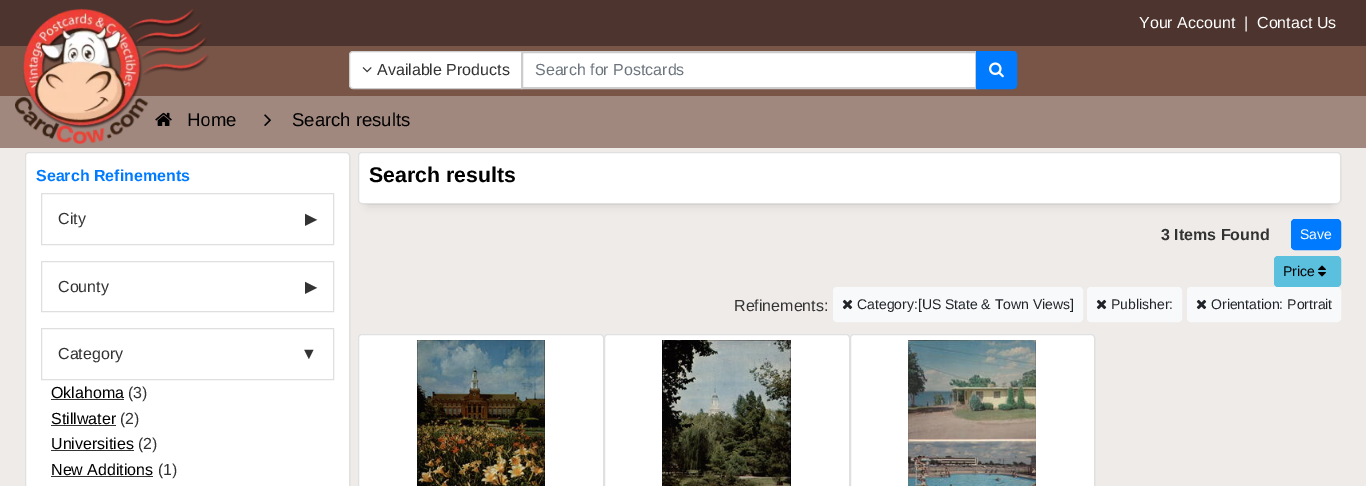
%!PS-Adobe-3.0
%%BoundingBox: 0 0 1366 486
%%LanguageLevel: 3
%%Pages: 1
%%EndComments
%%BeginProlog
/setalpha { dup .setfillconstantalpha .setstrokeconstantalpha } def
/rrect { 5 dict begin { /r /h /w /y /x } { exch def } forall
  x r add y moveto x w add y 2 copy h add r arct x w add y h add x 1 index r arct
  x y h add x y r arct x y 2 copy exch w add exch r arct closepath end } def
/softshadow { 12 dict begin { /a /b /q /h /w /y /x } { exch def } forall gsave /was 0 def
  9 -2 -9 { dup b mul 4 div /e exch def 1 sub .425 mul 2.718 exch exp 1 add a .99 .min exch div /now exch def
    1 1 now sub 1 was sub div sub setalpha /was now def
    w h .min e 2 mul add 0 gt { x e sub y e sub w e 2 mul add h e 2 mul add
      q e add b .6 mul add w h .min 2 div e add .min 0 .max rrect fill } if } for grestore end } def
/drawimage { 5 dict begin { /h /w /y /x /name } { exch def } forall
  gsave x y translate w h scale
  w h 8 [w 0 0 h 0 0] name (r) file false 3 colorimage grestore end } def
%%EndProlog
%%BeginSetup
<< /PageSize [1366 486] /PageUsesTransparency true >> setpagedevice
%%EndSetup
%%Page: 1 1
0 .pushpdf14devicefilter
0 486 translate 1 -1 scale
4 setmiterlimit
0.631 0.533 0.498 setrgbcolor
0 0 1366 486 rectfill
0.306 0.204 0.18 setrgbcolor
0 0 1366 46 rectfill
0.475 0.333 0.282 setrgbcolor
0 46 1366 50 rectfill
1 setgray
newpath 522 52 moveto 976 52 lineto 976 88 lineto 522 88 lineto closepath gsave fill grestore
0.8 setgray
2 setlinewidth
stroke
1 setgray
newpath 353 51.5 moveto 521.5 51.5 lineto 521.5 88.5 lineto 353 88.5 lineto 351 88.5 349.5 87 349.5 85 curveto 349.5 55 lineto 349.5 53 351 51.5 353 51.5 curveto closepath gsave fill grestore
0.8 setgray
1 setlinewidth
stroke
(images/2.raw) 362 67 10 6 drawimage
0 0.482 1 setrgbcolor
newpath 976.5 51.5 moveto 1013 51.5 lineto 1015 51.5 1016.5 53 1016.5 55 curveto 1016.5 85 lineto 1016.5 87 1015 88.5 1013 88.5 curveto 976.5 88.5 lineto closepath gsave fill grestore
stroke
(images/3.raw) 989 62 15 16 drawimage
(images/4.raw) 155 112 17 14 drawimage
(images/5.raw) 264 114 7 12 drawimage
0.937 0.922 0.914 setrgbcolor
0 148 1366 338 rectfill
1 setgray
25 152 325 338 4 rrect fill
0.12 setalpha
0 setgray
25.5 152.5 324 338 3.5 rrect stroke
1 setalpha
0.875 setgray
41.5 193.5 292 51 rectstroke
41.5 261.5 292 50 rectstroke
41.5 328.5 292 51 rectstroke
0.2 setgray
51 399 73 1 rectfill
51 425 65 1 rectfill
51 450 83 1 rectfill
51 476 102 1 rectfill
0 setgray
368 172 963 32 0 5 0.15 softshadow
1 setgray
358 152 983 52 4 rrect fill
0.12 setalpha
0 setgray
358.5 152.5 982 51 3.5 rrect stroke
1 setalpha
0 0.482 1 setrgbcolor
1291.5 219.5 49 30 3.5 rrect gsave fill grestore
stroke
0.357 0.753 0.871 setrgbcolor
1274.5 256.5 66 30 3.5 rrect gsave fill grestore
stroke
(images/6.raw) 1318 265 8 12 drawimage
0.973 0.976 0.98 setrgbcolor
833.5 287.5 249 34 3.5 rrect gsave fill grestore
stroke
(images/7.raw) 842 299 11 11 drawimage
1087.5 287.5 94 34 3.5 rrect gsave fill grestore
stroke
(images/7.raw) 1096 299 11 11 drawimage
1187.5 287.5 153 34 3.5 rrect gsave fill grestore
stroke
(images/7.raw) 1196 299 11 11 drawimage
1 setgray
358 334 246 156 4 rrect fill
0.12 setalpha
0 setgray
358.5 334.5 245 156 3.5 rrect stroke
1 setalpha
(images/8.raw) 417 340 128 146 drawimage
1 setgray
604 334 246 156 4 rrect fill
0.12 setalpha
0 setgray
604.5 334.5 245 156 3.5 rrect stroke
1 setalpha
(images/9.raw) 662 340 129 146 drawimage
1 setgray
850 334 245 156 4 rrect fill
0.12 setalpha
0 setgray
850.5 334.5 244 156 3.5 rrect stroke
1 setalpha
(images/10.raw) 908 340 128 146 drawimage
/LiberationSans-Regular [16 0 0 -16 0 0] selectfont
1 setgray
1139 28 moveto (Your Account) show
1244 28 moveto (|) show
1257 28 moveto (Contact Us) show
0.2 setgray
377 75 moveto (Available Products) show
0.424 0.459 0.49 setrgbcolor
535 75 moveto (Search for Postcards) show
/LiberationSans-Regular [18.5 0 0 -18.5 0 0] selectfont
0 setgray
187 126 moveto (Home) show
(images/1.raw) 15 8 194 136 drawimage
292 126 moveto (Search results) show
/LiberationSans-Bold [16 0 0 -16 0 0] selectfont
0 0.482 1 setrgbcolor
36 181 moveto (Search Refinements) show
/LiberationSans-Regular [16 0 0 -16 0 0] selectfont
0.2 setgray
58 224 moveto (City) show
/DejaVuSans-Regular [16 0 0 -16 0 0] selectfont
305 224 moveto (▶) show
/LiberationSans-Regular [16 0 0 -16 0 0] selectfont
58 292 moveto (County) show
/DejaVuSans-Regular [16 0 0 -16 0 0] selectfont
305 292 moveto (▶) show
/LiberationSans-Regular [16 0 0 -16 0 0] selectfont
58 359 moveto (Category) show
301 359 moveto (▼) show
0 setgray
51 398 moveto (Oklahoma) show
0.2 setgray
128 398 moveto (\(3\)) show
0 setgray
51 424 moveto (Stillwater) show
0.2 setgray
120 424 moveto (\(2\)) show
0 setgray
51 449 moveto (Universities) show
0.2 setgray
138 449 moveto (\(2\)) show
0 setgray
51 475 moveto (New Additions) show
0.2 setgray
158 475 moveto (\(1\)) show
/LiberationSans-Bold [21.25 0 0 -21.25 0 0] selectfont
0 setgray
369 182 moveto (Search results) show
/LiberationSans-Bold [16 0 0 -16 0 0] selectfont
0.2 setgray
1161 240 moveto (3 Items Found) show
/LiberationSans-Regular [14 0 0 -14 0 0] selectfont
1 setgray
1300 239 moveto (Save) show
0 setgray
1283 276 moveto (Price) show
/LiberationSans-Regular [16 0 0 -16 0 0] selectfont
0.2 setgray
734 311 moveto (Refinements:) show
/LiberationSans-Regular [14 0 0 -14 0 0] selectfont
0.129 0.145 0.161 setrgbcolor
857 309 moveto (Category:[US State & Town Views]) show
1111 309 moveto (Publisher:) show
1211 309 moveto (Orientation: Portrait) show
.poppdf14devicefilter showpage
%%EOF
